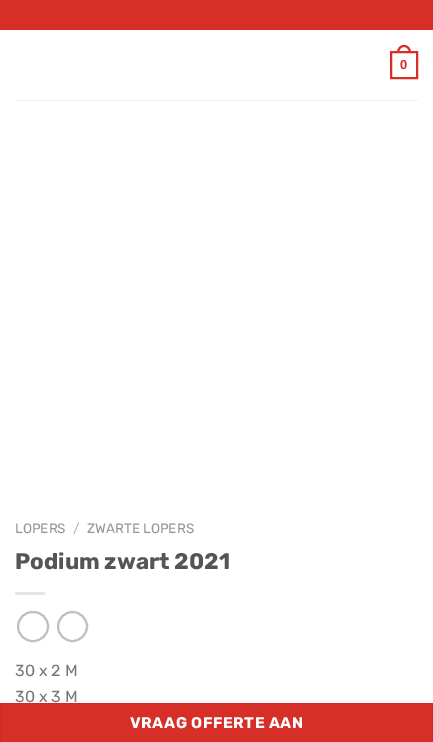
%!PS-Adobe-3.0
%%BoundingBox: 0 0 433 742
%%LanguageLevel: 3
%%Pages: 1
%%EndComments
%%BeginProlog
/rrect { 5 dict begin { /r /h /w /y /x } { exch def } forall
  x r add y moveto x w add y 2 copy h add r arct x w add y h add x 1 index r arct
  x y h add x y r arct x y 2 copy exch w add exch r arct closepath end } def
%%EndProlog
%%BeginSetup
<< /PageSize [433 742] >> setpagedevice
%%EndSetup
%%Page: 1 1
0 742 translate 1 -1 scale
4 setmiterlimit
1 setgray
0 0 433 742 rectfill
0.843 0.18 0.153 setrgbcolor
0 0 433 30 rectfill
2 setlinewidth
391 52 26 26 rectstroke
newpath 404 45 moveto 408.5 45 411 49 411 53 curveto 397 53 lineto 397 49 399.5 45 404 45 curveto closepath 404 47 moveto 407.5 47 409 50 409 53 curveto 399 53 lineto 399 50 400.5 47 404 47 curveto closepath eofill
0.945 setgray
15 100 403 1 rectfill
0.902 setgray
15 592 30 3 rectfill
0.753 setgray
18 612 30 29 14.5 rrect stroke
newpath 72.5 626.5 14.5 0 360 arc closepath stroke
0.843 0.18 0.153 setrgbcolor
newpath 0.5 703.5 moveto 432.5 703.5 lineto 432.5 741.5 lineto 0.5 741.5 lineto closepath gsave fill grestore
0.8 0.173 0.145 setrgbcolor
1 setlinewidth
stroke
/LiberationSans-Bold [13 0 0 -13 0 0] selectfont
0.843 0.18 0.153 setrgbcolor
400 69 moveto (0) show
/Rubik-Regular [13.5 0 0 -13.5 0 0] selectfont
0.58 setgray
15 533 moveto (LOPERS) show
0.698 setgray
73 533 moveto (/) show
0.58 setgray
87 533 moveto (ZWARTE LOPERS) show
/Rubik-Bold [22.5 0 0 -22.5 0 0] selectfont
0.333 setgray
15 569 moveto (Podium zwart 2021) show
/Rubik-Regular [16 0 0 -16 0 0] selectfont
0.467 setgray
15 676 moveto (30 x 2 M) show
15 702 moveto (30 x 3 M) show
/Rubik-Bold [15.5 0 0 -15.5 0 0] selectfont
1 setgray
130 728 moveto 0.5 0 (VRAAG OFFERTE AAN) ashow
showpage
%%EOF
